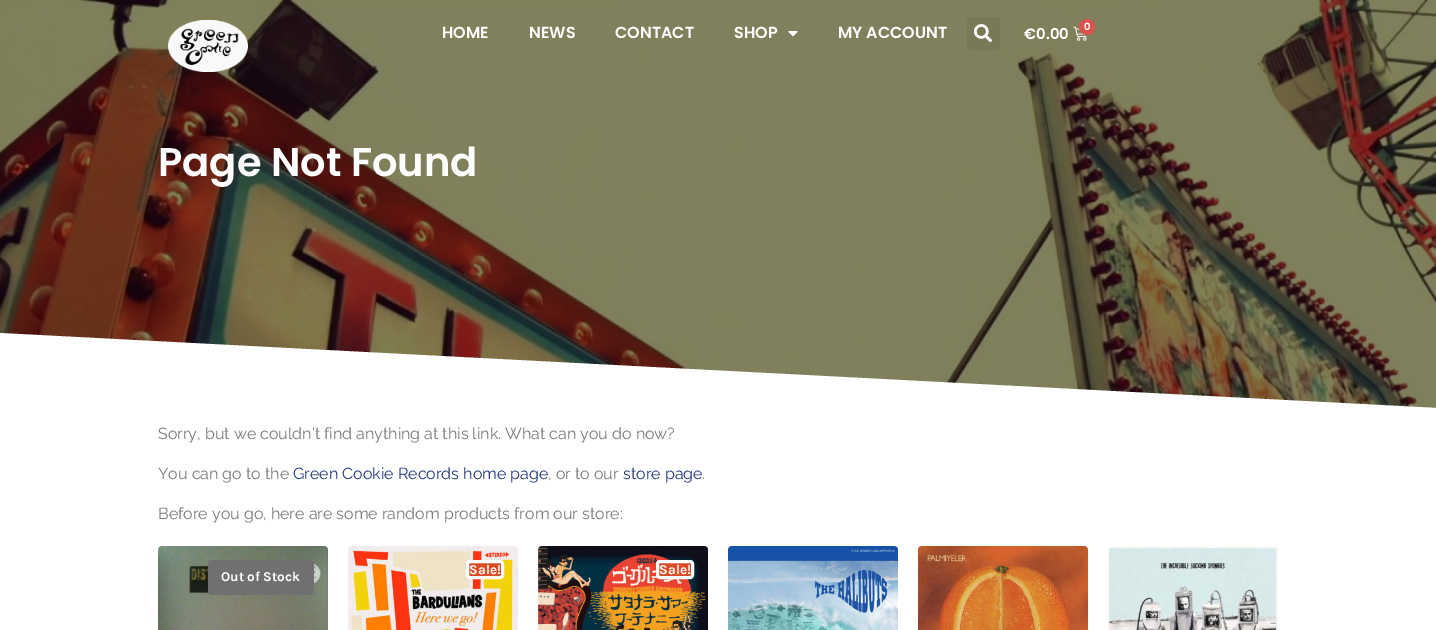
%!PS-Adobe-3.0
%%BoundingBox: 0 0 1436 630
%%LanguageLevel: 3
%%Pages: 1
%%EndComments
%%BeginProlog
/rrect { 5 dict begin { /r /h /w /y /x } { exch def } forall
  x r add y moveto x w add y 2 copy h add r arct x w add y h add x 1 index r arct
  x y h add x y r arct x y 2 copy exch w add exch r arct closepath end } def
/drawimage { 5 dict begin { /h /w /y /x /name } { exch def } forall
  gsave x y translate w h scale
  w h 8 [w 0 0 h 0 0] name (r) file false 3 colorimage grestore end } def
%%EndProlog
%%BeginSetup
<< /PageSize [1436 630] >> setpagedevice
%%EndSetup
%%Page: 1 1
0 630 translate 1 -1 scale
4 setmiterlimit
1 setgray
0 0 1436 630 rectfill
(images/5.raw) 0 0 1436 408 drawimage
(images/1.raw) 168 20 80 52 drawimage
(images/2.raw) 788 31 10 6 drawimage
0.475 0.475 0.345 setrgbcolor
967 17 33 33 3 rrect fill
(images/3.raw) 973 24 19 19 drawimage
(images/4.raw) 1073 26 14 15 drawimage
0.851 0.325 0.31 setrgbcolor
newpath 1087 27 8 0 360 arc closepath fill
1 setgray
newpath 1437 408 moveto 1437 413 lineto -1 413 lineto -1 333 lineto closepath fill
(images/6.raw) 348 546 170 84 drawimage
0.855 0.298 0.149 setrgbcolor
467.5 561.5 35 16 2.5 rrect gsave fill grestore
1 setgray
3 setlinewidth
stroke
(images/7.raw) 538 546 170 84 drawimage
0.855 0.298 0.149 setrgbcolor
657.5 561.5 35 16 2.5 rrect gsave fill grestore
1 setgray
stroke
(images/8.raw) 728 546 170 84 drawimage
(images/9.raw) 918 546 170 84 drawimage
(images/10.raw) 1108 546 170 84 drawimage
(images/11.raw) 158 546 170 84 drawimage
0.439 setgray
208 560 106 35 4 rrect fill
/Poppins-SemiBold [16 0 0 -16 0 0] selectfont
1 setgray
442 38 moveto (HOME) show
529 38 moveto (NEWS) show
615 38 moveto (CONTACT) show
734 38 moveto (SHOP) show
838 38 moveto (MY ACCOUNT) show
/Poppins-SemiBold [10 0 0 -10 0 0] selectfont
1084 30 moveto (0) show
/Poppins-SemiBold [15 0 0 -15 0 0] selectfont
1024 39 moveto (€0.00) show
/Poppins-SemiBold [40 0 0 -40 0 0] selectfont
158 176 moveto (Page Not Found) show
/Raleway-Regular [16 0 0 -16 0 0] selectfont
0.478 setgray
158 439 moveto (Sorry, but we couldn’t find anything at this link. What can you do now?) show
158 479 moveto (You can go to the) show
0.133 0.208 0.471 setrgbcolor
293 479 moveto (Green Cookie Records home page) show
0.478 setgray
548 479 moveto (, or to our) show
0.133 0.208 0.471 setrgbcolor
623 479 moveto (store page) show
0.478 setgray
702 479 moveto (.) show
158 519 moveto (Before you go, here are some random products from our store:) show
/Karla-Bold [13.5 0 0 -13.5 0 0] selectfont
1 setgray
469 574 moveto (Sale!) show
659 574 moveto (Sale!) show
221 581 moveto (Out of Stock) show
showpage
%%EOF
